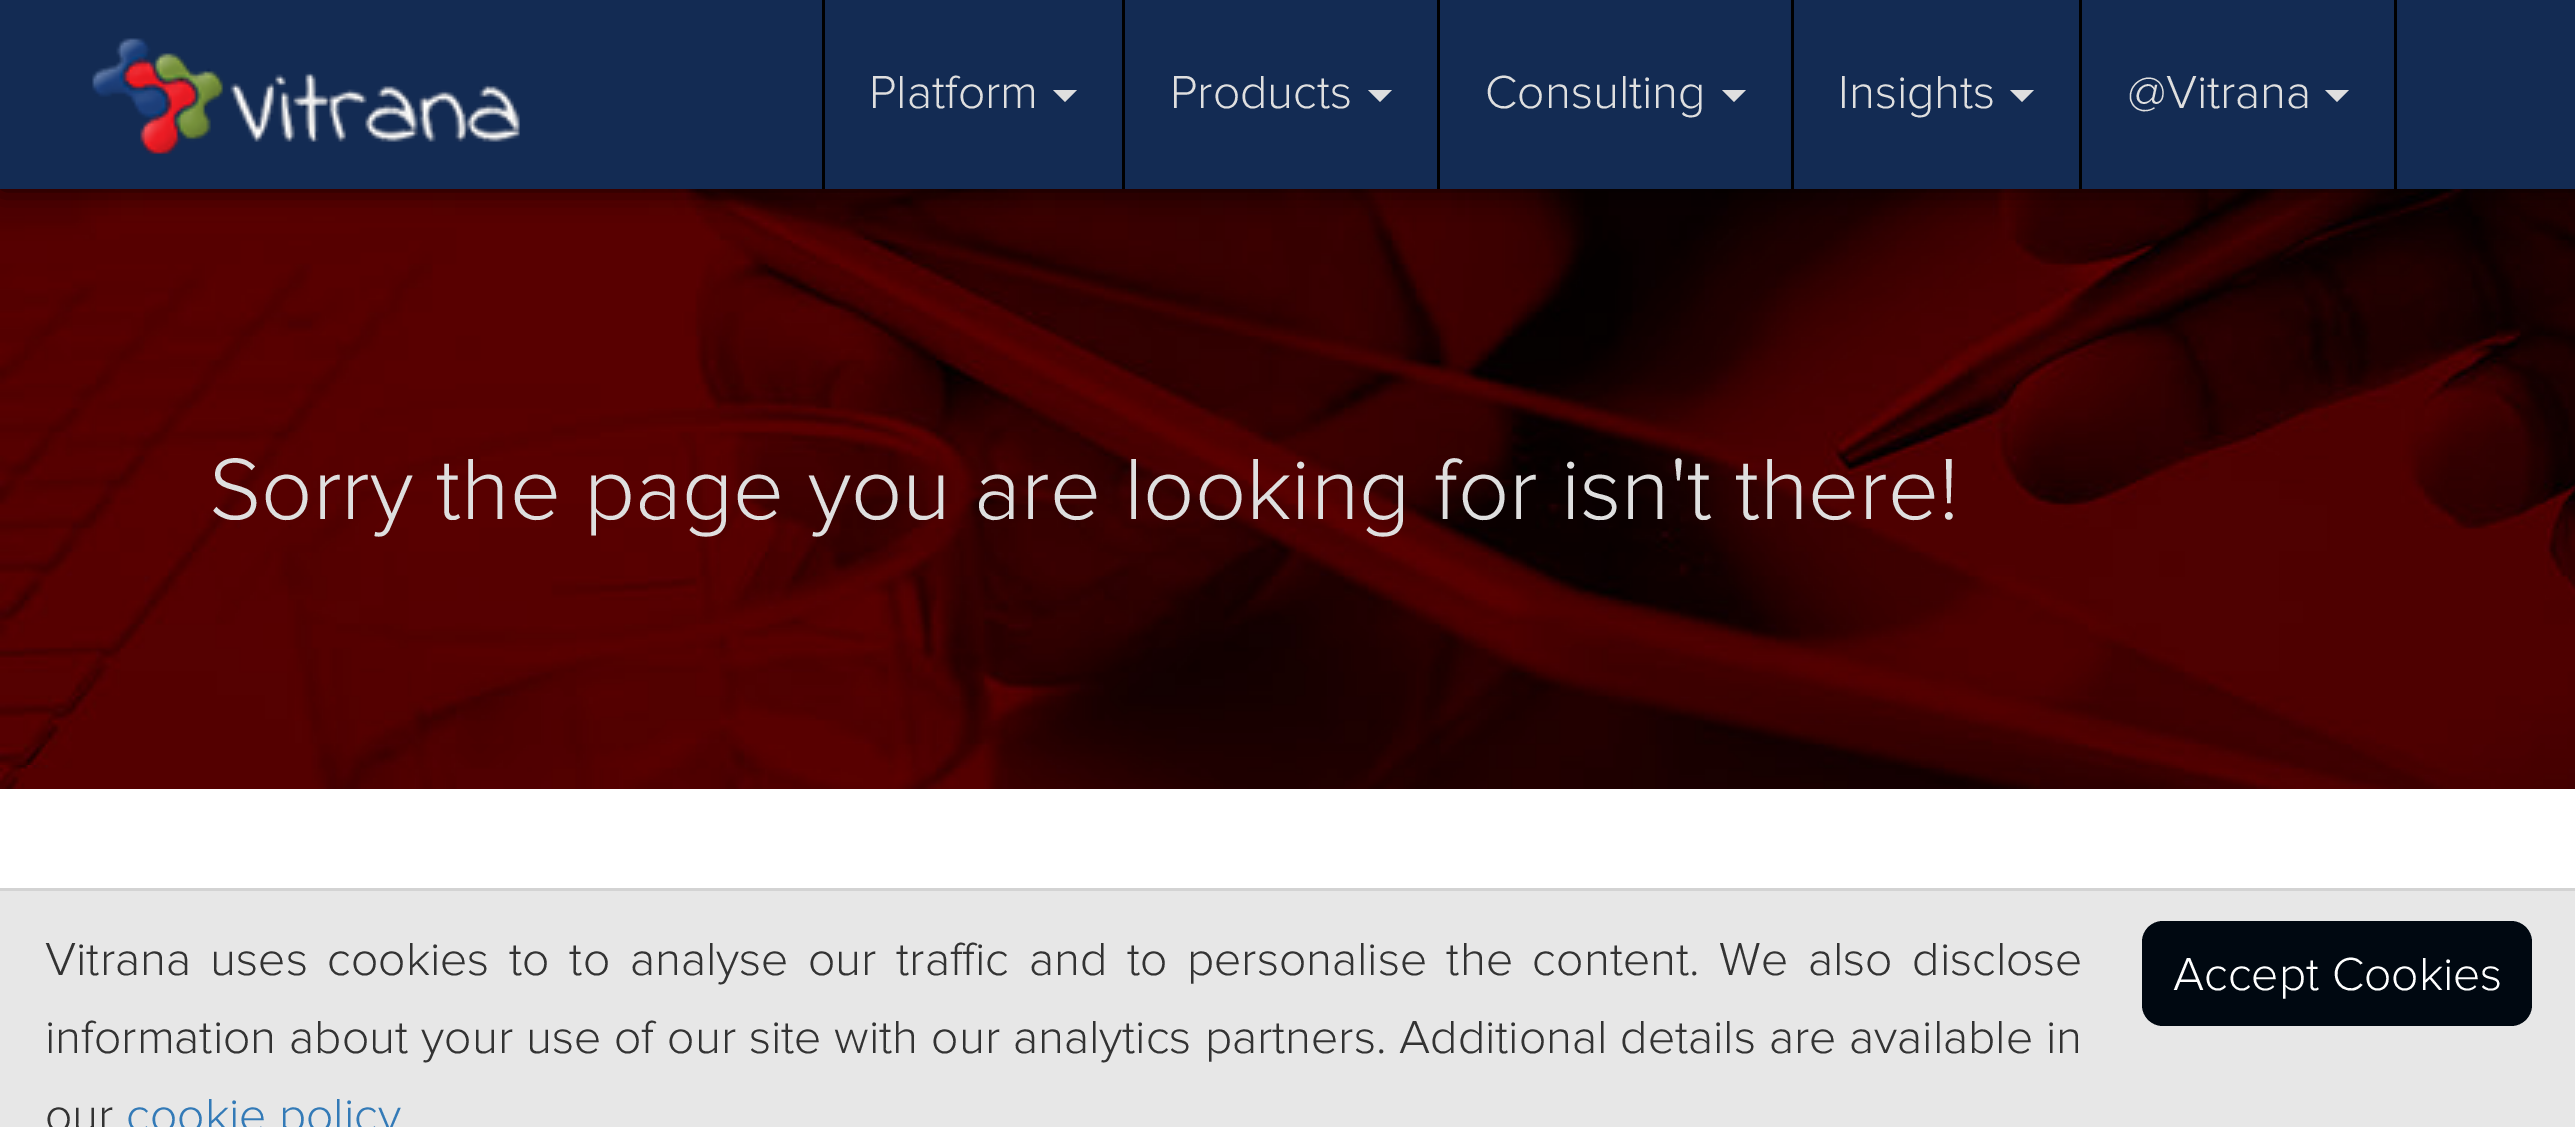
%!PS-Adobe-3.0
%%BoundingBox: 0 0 2575 1127
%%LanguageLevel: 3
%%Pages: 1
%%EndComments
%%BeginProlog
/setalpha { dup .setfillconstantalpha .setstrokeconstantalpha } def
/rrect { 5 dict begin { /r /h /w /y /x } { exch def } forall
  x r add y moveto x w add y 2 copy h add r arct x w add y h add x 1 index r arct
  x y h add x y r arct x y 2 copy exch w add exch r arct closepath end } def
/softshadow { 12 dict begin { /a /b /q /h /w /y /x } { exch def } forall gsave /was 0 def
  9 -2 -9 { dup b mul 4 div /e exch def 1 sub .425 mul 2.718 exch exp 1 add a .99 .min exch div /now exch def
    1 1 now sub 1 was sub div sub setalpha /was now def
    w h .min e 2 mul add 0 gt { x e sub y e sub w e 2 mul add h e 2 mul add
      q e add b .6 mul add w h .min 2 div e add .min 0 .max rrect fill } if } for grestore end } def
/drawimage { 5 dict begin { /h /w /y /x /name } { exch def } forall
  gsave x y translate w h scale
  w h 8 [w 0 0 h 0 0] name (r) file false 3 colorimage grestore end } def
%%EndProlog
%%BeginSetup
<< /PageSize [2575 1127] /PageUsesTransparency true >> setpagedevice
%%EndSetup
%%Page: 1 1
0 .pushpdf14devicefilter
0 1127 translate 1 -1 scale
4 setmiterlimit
1 setgray
0 0 2575 1127 rectfill
(images/2.raw) 0 189 2575 600 drawimage
0 setgray
0 0 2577 189 0 15 0.8 softshadow
0.075 0.169 0.325 setrgbcolor
0 0 2575 189 rectfill
(images/1.raw) 92 38 428 116 drawimage
0 setgray
822 0 3 189 rectfill
0.875 setgray
newpath 1053 90 moveto 1077 90 lineto 1065 102 lineto closepath fill
0 setgray
1122 0 3 189 rectfill
0.875 setgray
newpath 1368 90 moveto 1392 90 lineto 1380 102 lineto closepath fill
0 setgray
1437 0 3 189 rectfill
0.875 setgray
newpath 1722 90 moveto 1746 90 lineto 1734 102 lineto closepath fill
0 setgray
1791 0 3 189 rectfill
0.875 setgray
newpath 2010 90 moveto 2034 90 lineto 2022 102 lineto closepath fill
0 setgray
2394 0 3 189 rectfill
2079 0 3 189 rectfill
0.875 setgray
newpath 2325 90 moveto 2349 90 lineto 2337 102 lineto closepath fill
0.906 setgray
0 891 2575 236 rectfill
0.827 setgray
0 888 2575 3 rectfill
0 0.031 0.067 setrgbcolor
2142 921 390 105 21 rrect fill
/ProximaNova-Light [48 0 0 -48 0 0] selectfont
0.875 setgray
869 108 moveto (Platform) show
1170 108 moveto (Products) show
1485 108 moveto (Consulting) show
1838 108 moveto (Insights) show
2128 108 moveto (@Vitrana) show
/ProximaNova-Light [90 0 0 -90 0 0] selectfont
209 519 moveto (Sorry the page you are looking for isn't there!) show
/ProximaNova-Light [48 0 0 -48 0 0] selectfont
0.2 setgray
45 975 moveto 7.25 0 32 (Vitrana uses cookies to to analyse our traffic and to personalise the content. We also disclose) widthshow
45 1053 moveto 0.6 0 32 (information about your use of our site with our analytics partners. Additional details are available in) widthshow
45 1131 moveto (our) show
0.2 0.478 0.718 setrgbcolor
126 1131 moveto (cookie policy) show
1 setgray
2173 990 moveto (Accept Cookies) show
.poppdf14devicefilter showpage
%%EOF
